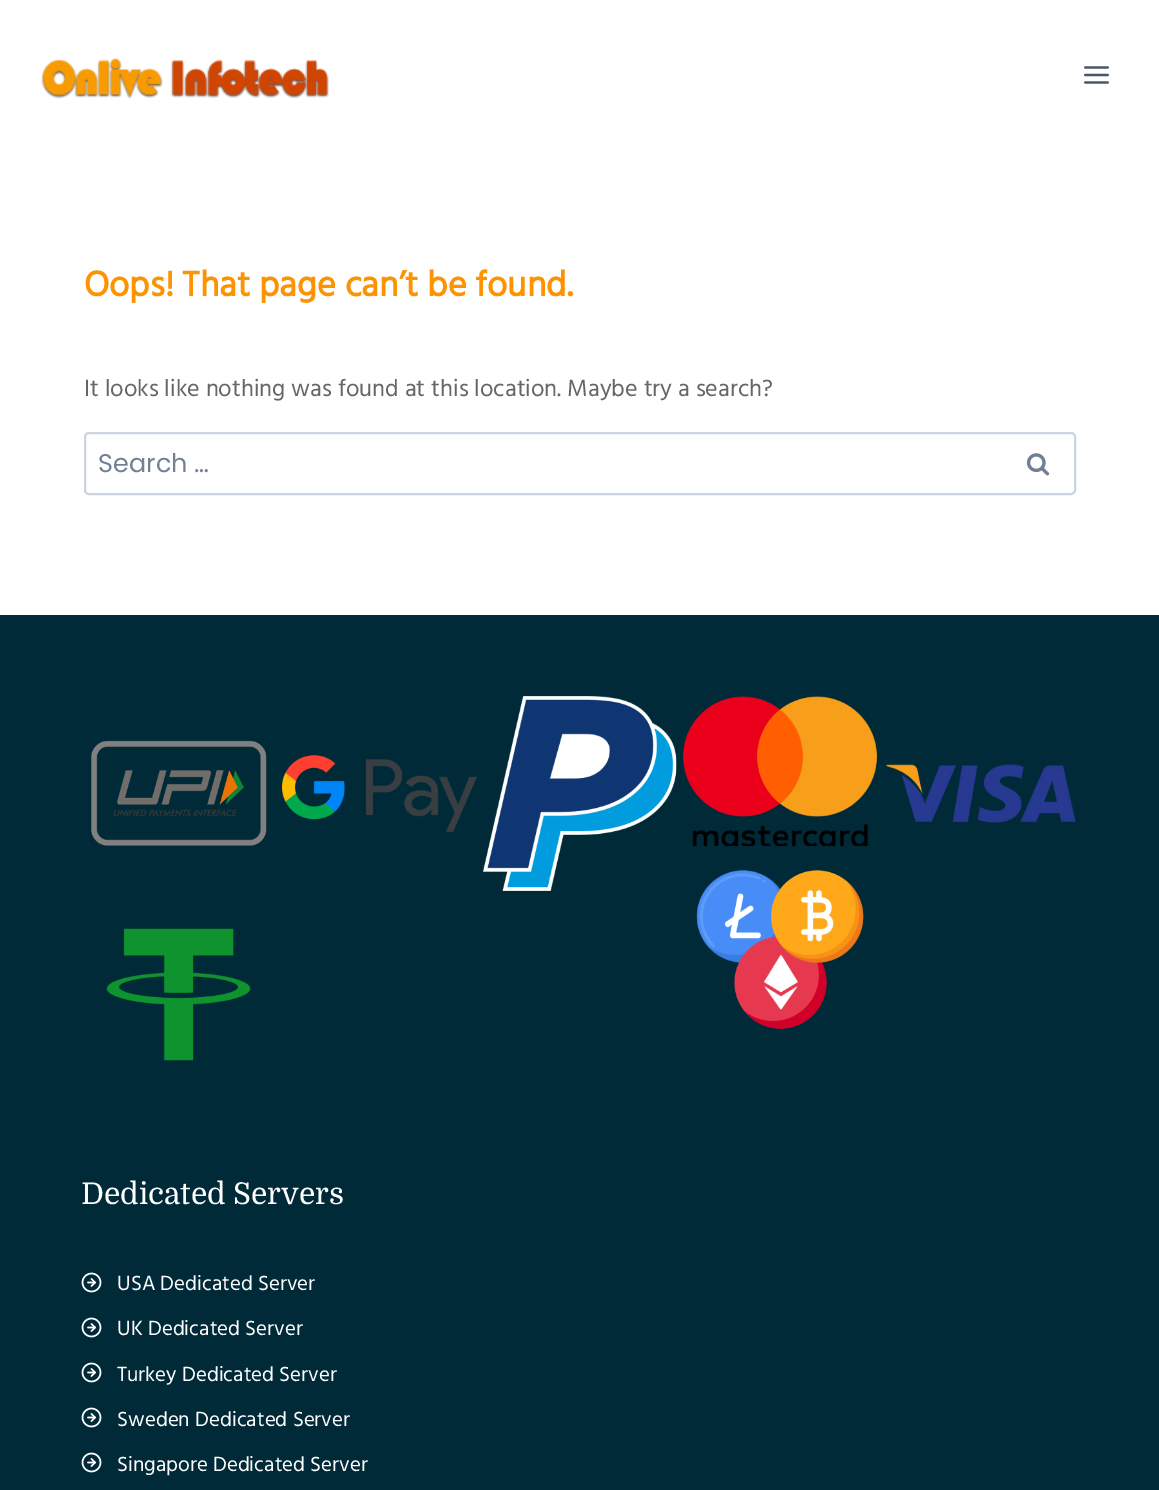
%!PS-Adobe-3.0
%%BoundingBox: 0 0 1159 1490
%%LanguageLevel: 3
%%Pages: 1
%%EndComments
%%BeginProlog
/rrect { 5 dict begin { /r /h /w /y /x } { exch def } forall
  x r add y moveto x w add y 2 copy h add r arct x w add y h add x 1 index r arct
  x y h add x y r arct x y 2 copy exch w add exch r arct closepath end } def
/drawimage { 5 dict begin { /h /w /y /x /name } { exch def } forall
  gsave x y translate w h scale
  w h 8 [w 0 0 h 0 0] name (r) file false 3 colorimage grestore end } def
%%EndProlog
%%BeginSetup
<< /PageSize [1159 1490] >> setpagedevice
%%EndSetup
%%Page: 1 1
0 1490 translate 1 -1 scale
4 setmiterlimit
1 setgray
0 0 1159 1490 rectfill
(images/1.raw) 41 58 288 41 drawimage
(images/2.raw) 1084 66 25 18 drawimage
0.796 0.835 0.878 setrgbcolor
2 setlinewidth
85 433 990 61 4 rrect stroke
(images/3.raw) 1026 453 24 23 drawimage
0 0.165 0.22 setrgbcolor
0 615 1159 875 rectfill
(images/4.raw) 91 740 176 106 drawimage
(images/5.raw) 282 754 195 78 drawimage
(images/6.raw) 483 696 194 195 drawimage
(images/7.raw) 682 696 196 150 drawimage
(images/8.raw) 886 764 190 59 drawimage
(images/9.raw) 106 928 145 133 drawimage
(images/10.raw) 696 870 168 159 drawimage
(images/11.raw) 81 1272 21 21 drawimage
(images/11.raw) 81 1317 21 21 drawimage
(images/11.raw) 81 1362 21 21 drawimage
(images/11.raw) 81 1407 21 21 drawimage
(images/11.raw) 81 1452 21 21 drawimage
/HindVadodara-Bold [36 0 0 -36 0 0] selectfont
0.996 0.576 0.004 setrgbcolor
84 296 moveto (Oops! That page can’t be found.) show
/HindVadodara-Regular [24 0 0 -24 0 0] selectfont
0.4 setgray
84 396 moveto (It looks like nothing was found at this location. Maybe try a search?) show
/Poppins-Regular [25.5 0 0 -25.5 0 0] selectfont
0.443 0.502 0.588 setrgbcolor
98 472 moveto (Search …) show
/Domine-Regular [30 0 0 -30 0 0] selectfont
1 setgray
81 1204 moveto (Dedicated Servers) show
/HindVadodara-Regular [21 0 0 -21 0 0] selectfont
117 1290 moveto (USA Dedicated Server) show
117 1335 moveto (UK Dedicated Server) show
117 1381 moveto (Turkey Dedicated Server) show
117 1426 moveto (Sweden Dedicated Server) show
117 1471 moveto (Singapore Dedicated Server) show
showpage
%%EOF
